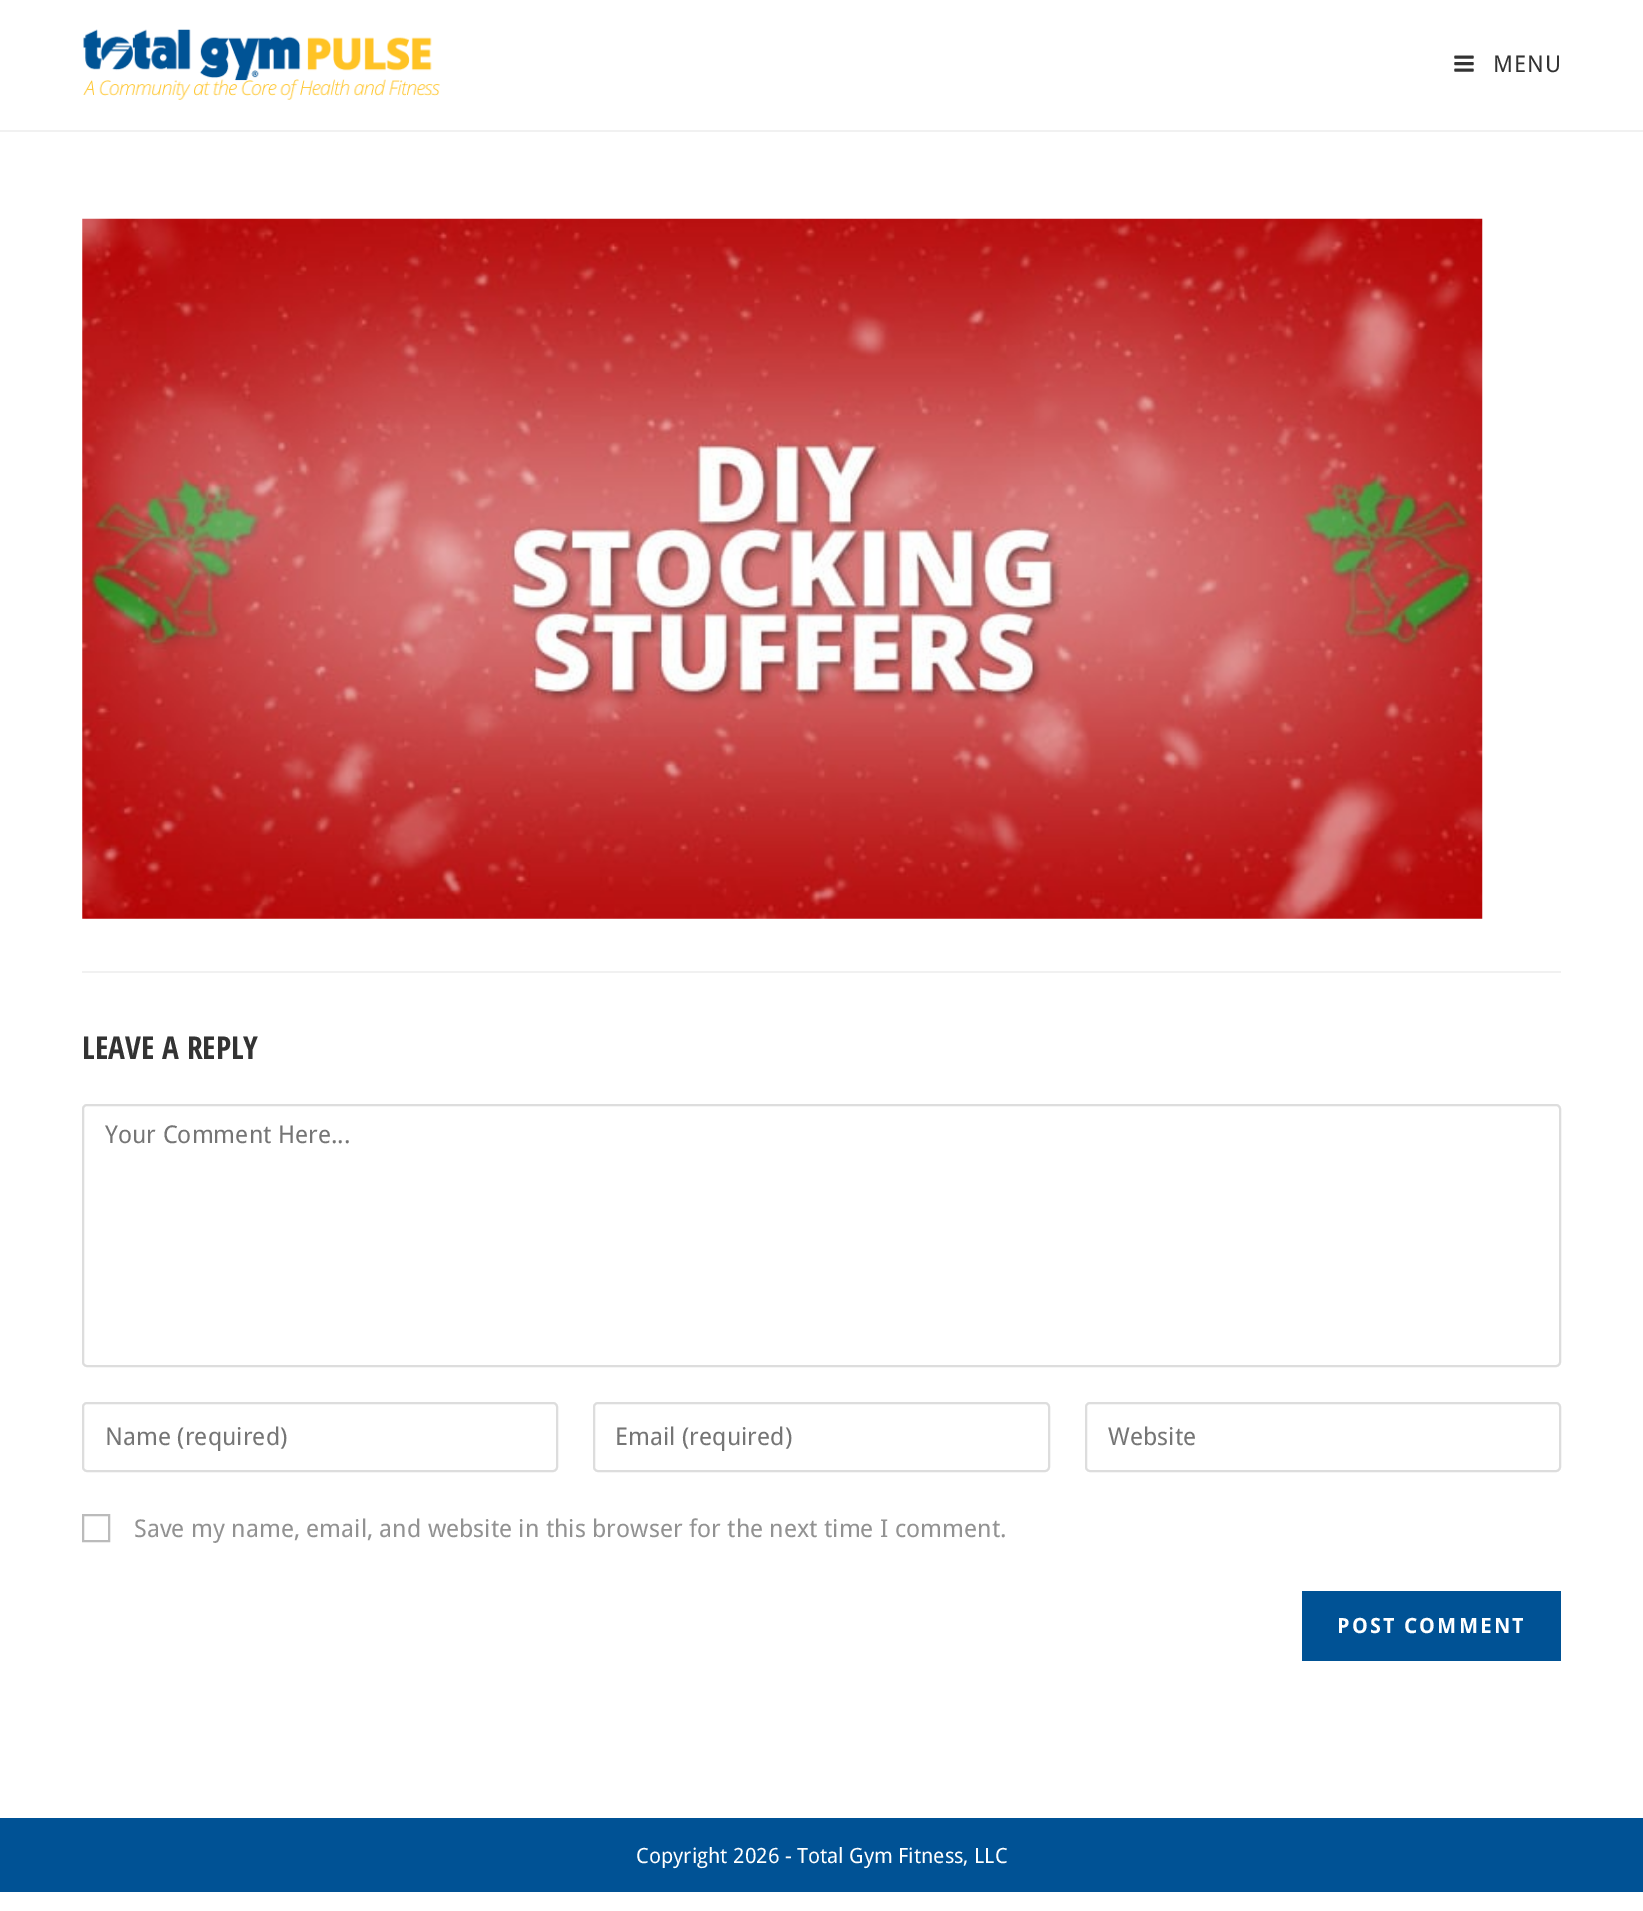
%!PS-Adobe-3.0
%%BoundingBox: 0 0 1643 1911
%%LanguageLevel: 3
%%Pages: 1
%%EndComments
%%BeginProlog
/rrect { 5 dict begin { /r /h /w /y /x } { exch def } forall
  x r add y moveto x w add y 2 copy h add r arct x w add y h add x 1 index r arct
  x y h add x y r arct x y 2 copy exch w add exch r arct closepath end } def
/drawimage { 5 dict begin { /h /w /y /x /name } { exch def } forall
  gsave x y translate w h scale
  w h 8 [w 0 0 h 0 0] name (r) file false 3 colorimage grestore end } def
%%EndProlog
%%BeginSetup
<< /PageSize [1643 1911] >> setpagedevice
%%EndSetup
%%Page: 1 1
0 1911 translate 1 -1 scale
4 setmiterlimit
1 setgray
0 0 1643 1911 rectfill
0.945 setgray
0 130 1643 2 rectfill
(images/1.raw) 83 29 357 71 drawimage
(images/2.raw) 1454 55 20 17 drawimage
(images/3.raw) 82 218 1401 701 drawimage
82 971 1479 2 rectfill
0.867 setgray
2 setlinewidth
83 1105 1477 261 4 rrect stroke
83 1403 474 68 4 rrect stroke
594 1403 455 68 4 rrect stroke
1086 1403 474 68 4 rrect stroke
0.733 setgray
83 1515 26 26 rectstroke
0 0.322 0.584 setrgbcolor
1302 1591 259 70 rectfill
0 1818 1643 74 rectfill
/DroidSans-Regular [23 0 0 -23 0 0] selectfont
0.2 setgray
1493 72 moveto 1 0 (MENU) ashow
/OpenSansCondensed-Bold [31.5 0 0 -31.5 0 0] selectfont
82 1059 moveto (LEAVE A REPLY) show
/DroidSans-Regular [24.5 0 0 -24.5 0 0] selectfont
0.459 setgray
105 1143 moveto (Your Comment Here...) show
105 1445 moveto (Name \(required\)) show
615 1445 moveto (Email \(required\)) show
1108 1445 moveto (Website) show
0.573 setgray
134 1537 moveto (Save my name, email, and website in this browser for the next time I comment.) show
/DroidSans-Bold [21 0 0 -21 0 0] selectfont
1 setgray
1337 1633 moveto 2.1 0 (POST COMMENT) ashow
/DroidSans-Regular [21 0 0 -21 0 0] selectfont
636 1863 moveto (Copyright 2026 - Total Gym Fitness, LLC) show
showpage
%%EOF
